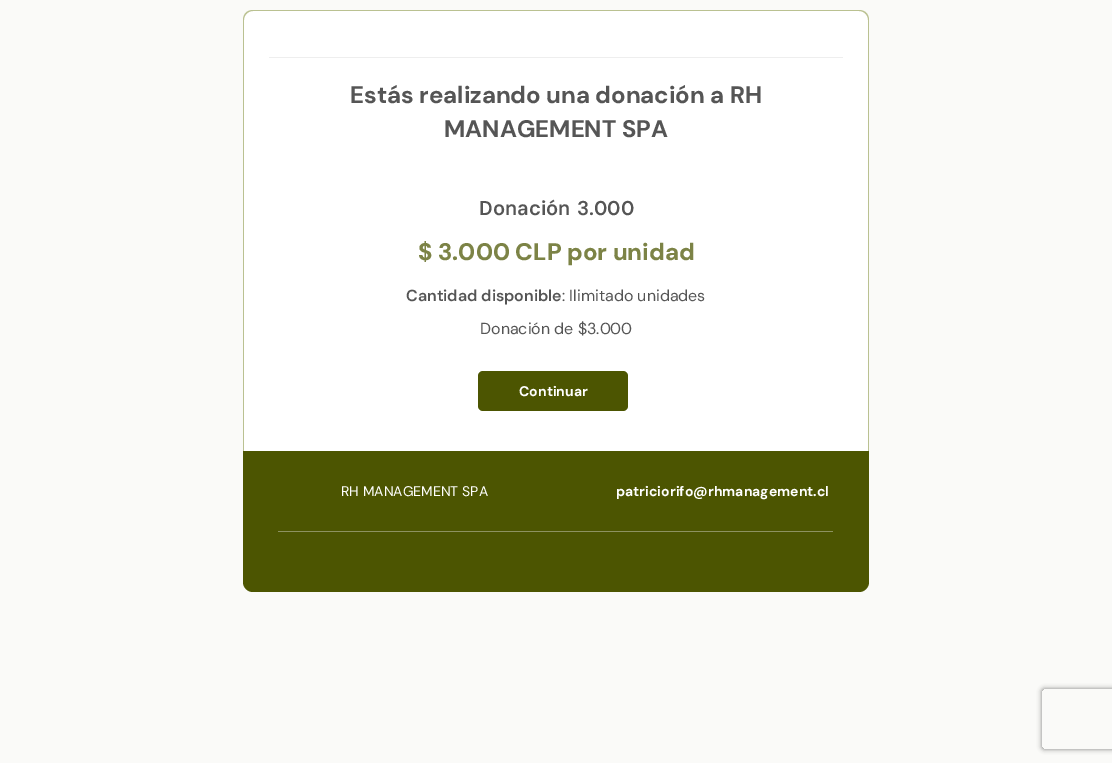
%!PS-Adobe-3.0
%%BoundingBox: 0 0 1112 763
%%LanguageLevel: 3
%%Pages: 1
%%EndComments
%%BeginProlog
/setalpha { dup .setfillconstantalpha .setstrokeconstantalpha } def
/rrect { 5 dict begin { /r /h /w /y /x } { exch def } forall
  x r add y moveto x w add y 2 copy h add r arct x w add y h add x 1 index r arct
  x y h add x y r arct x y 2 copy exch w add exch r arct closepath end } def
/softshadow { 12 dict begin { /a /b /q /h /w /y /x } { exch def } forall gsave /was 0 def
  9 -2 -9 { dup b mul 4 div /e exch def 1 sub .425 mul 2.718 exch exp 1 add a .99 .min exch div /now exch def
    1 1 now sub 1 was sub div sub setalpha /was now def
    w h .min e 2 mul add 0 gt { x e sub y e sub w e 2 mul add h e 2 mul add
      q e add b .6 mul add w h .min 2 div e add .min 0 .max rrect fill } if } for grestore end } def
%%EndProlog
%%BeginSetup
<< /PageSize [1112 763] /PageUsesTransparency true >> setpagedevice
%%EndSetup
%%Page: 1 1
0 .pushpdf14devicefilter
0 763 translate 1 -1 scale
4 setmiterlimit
0.98 0.98 0.973 setrgbcolor
0 0 1112 763 rectfill
1 setgray
newpath 253 10 moveto 859 10 lineto 864.5 10 869 14.5 869 20 curveto 869 451 lineto 243 451 lineto 243 20 lineto 243 14.5 247.5 10 253 10 curveto closepath fill
0.729 0.757 0.569 setrgbcolor
newpath 253 10 moveto 859 10 lineto 865 10 869 14 869 20 curveto 869 451 lineto 243 451 lineto 243 20 lineto 243 14 247 10 253 10 curveto closepath 253 11 moveto 859 11 lineto 864 11 868 15 868 20 curveto 868 451 lineto 244 451 lineto 244 20 lineto 244 15 248 11 253 11 curveto closepath eofill
0.933 setgray
269 57 574 1 rectfill
0.298 0.333 0.004 setrgbcolor
478 371 150 40 5 rrect fill
newpath 243 451 moveto 869 451 lineto 869 582 lineto 869 587.5 864.5 592 859 592 curveto 253 592 lineto 247.5 592 243 587.5 243 582 curveto closepath fill
0.553 0.573 0.376 setrgbcolor
278 531 555 1 rectfill
gsave
newpath 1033 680 moveto 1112 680 lineto 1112 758 lineto 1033 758 lineto closepath 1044 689 moveto 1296 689 lineto 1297 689 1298 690 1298 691 curveto 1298 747 lineto 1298 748 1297 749 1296 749 curveto 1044 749 lineto 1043 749 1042 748 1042 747 curveto 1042 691 lineto 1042 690 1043 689 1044 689 curveto closepath eoclip newpath
0.502 setgray
1042 689 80 60 2 2.5 1 softshadow
grestore
/DMSans-Bold [24 0 0 -24 0 0] selectfont
0.333 setgray
350 103 moveto (Estás realizando una donación a RH) show
444 137 moveto (MANAGEMENT SPA) show
/DMSans-SemiBold [20 0 0 -20 0 0] selectfont
479 215 moveto 1 0 32 (Donación 3.000) widthshow
/DMSans-ExtraBold [24 0 0 -24 0 0] selectfont
0.486 0.514 0.275 setrgbcolor
418 260 moveto ($ 3.000 CLP por unidad) show
/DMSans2-SemiBold [16 0 0 -16 0 0] selectfont
0.333 setgray
406 301 moveto (Cantidad disponible) show
/DMSans-Regular [16 0 0 -16 0 0] selectfont
562 301 moveto (: Ilimitado unidades) show
480 334 moveto (Donación de $3.000) show
/DMSans2-Bold [14 0 0 -14 0 0] selectfont
1 setgray
519 396 moveto (Continuar) show
/DMSans2-Regular [14 0 0 -14 0 0] selectfont
341 496 moveto (RH MANAGEMENT SPA) show
/DMSans2-Bold [14 0 0 -14 0 0] selectfont
616 496 moveto (patriciorifo@rhmanagement.cl) show
.poppdf14devicefilter showpage
%%EOF
